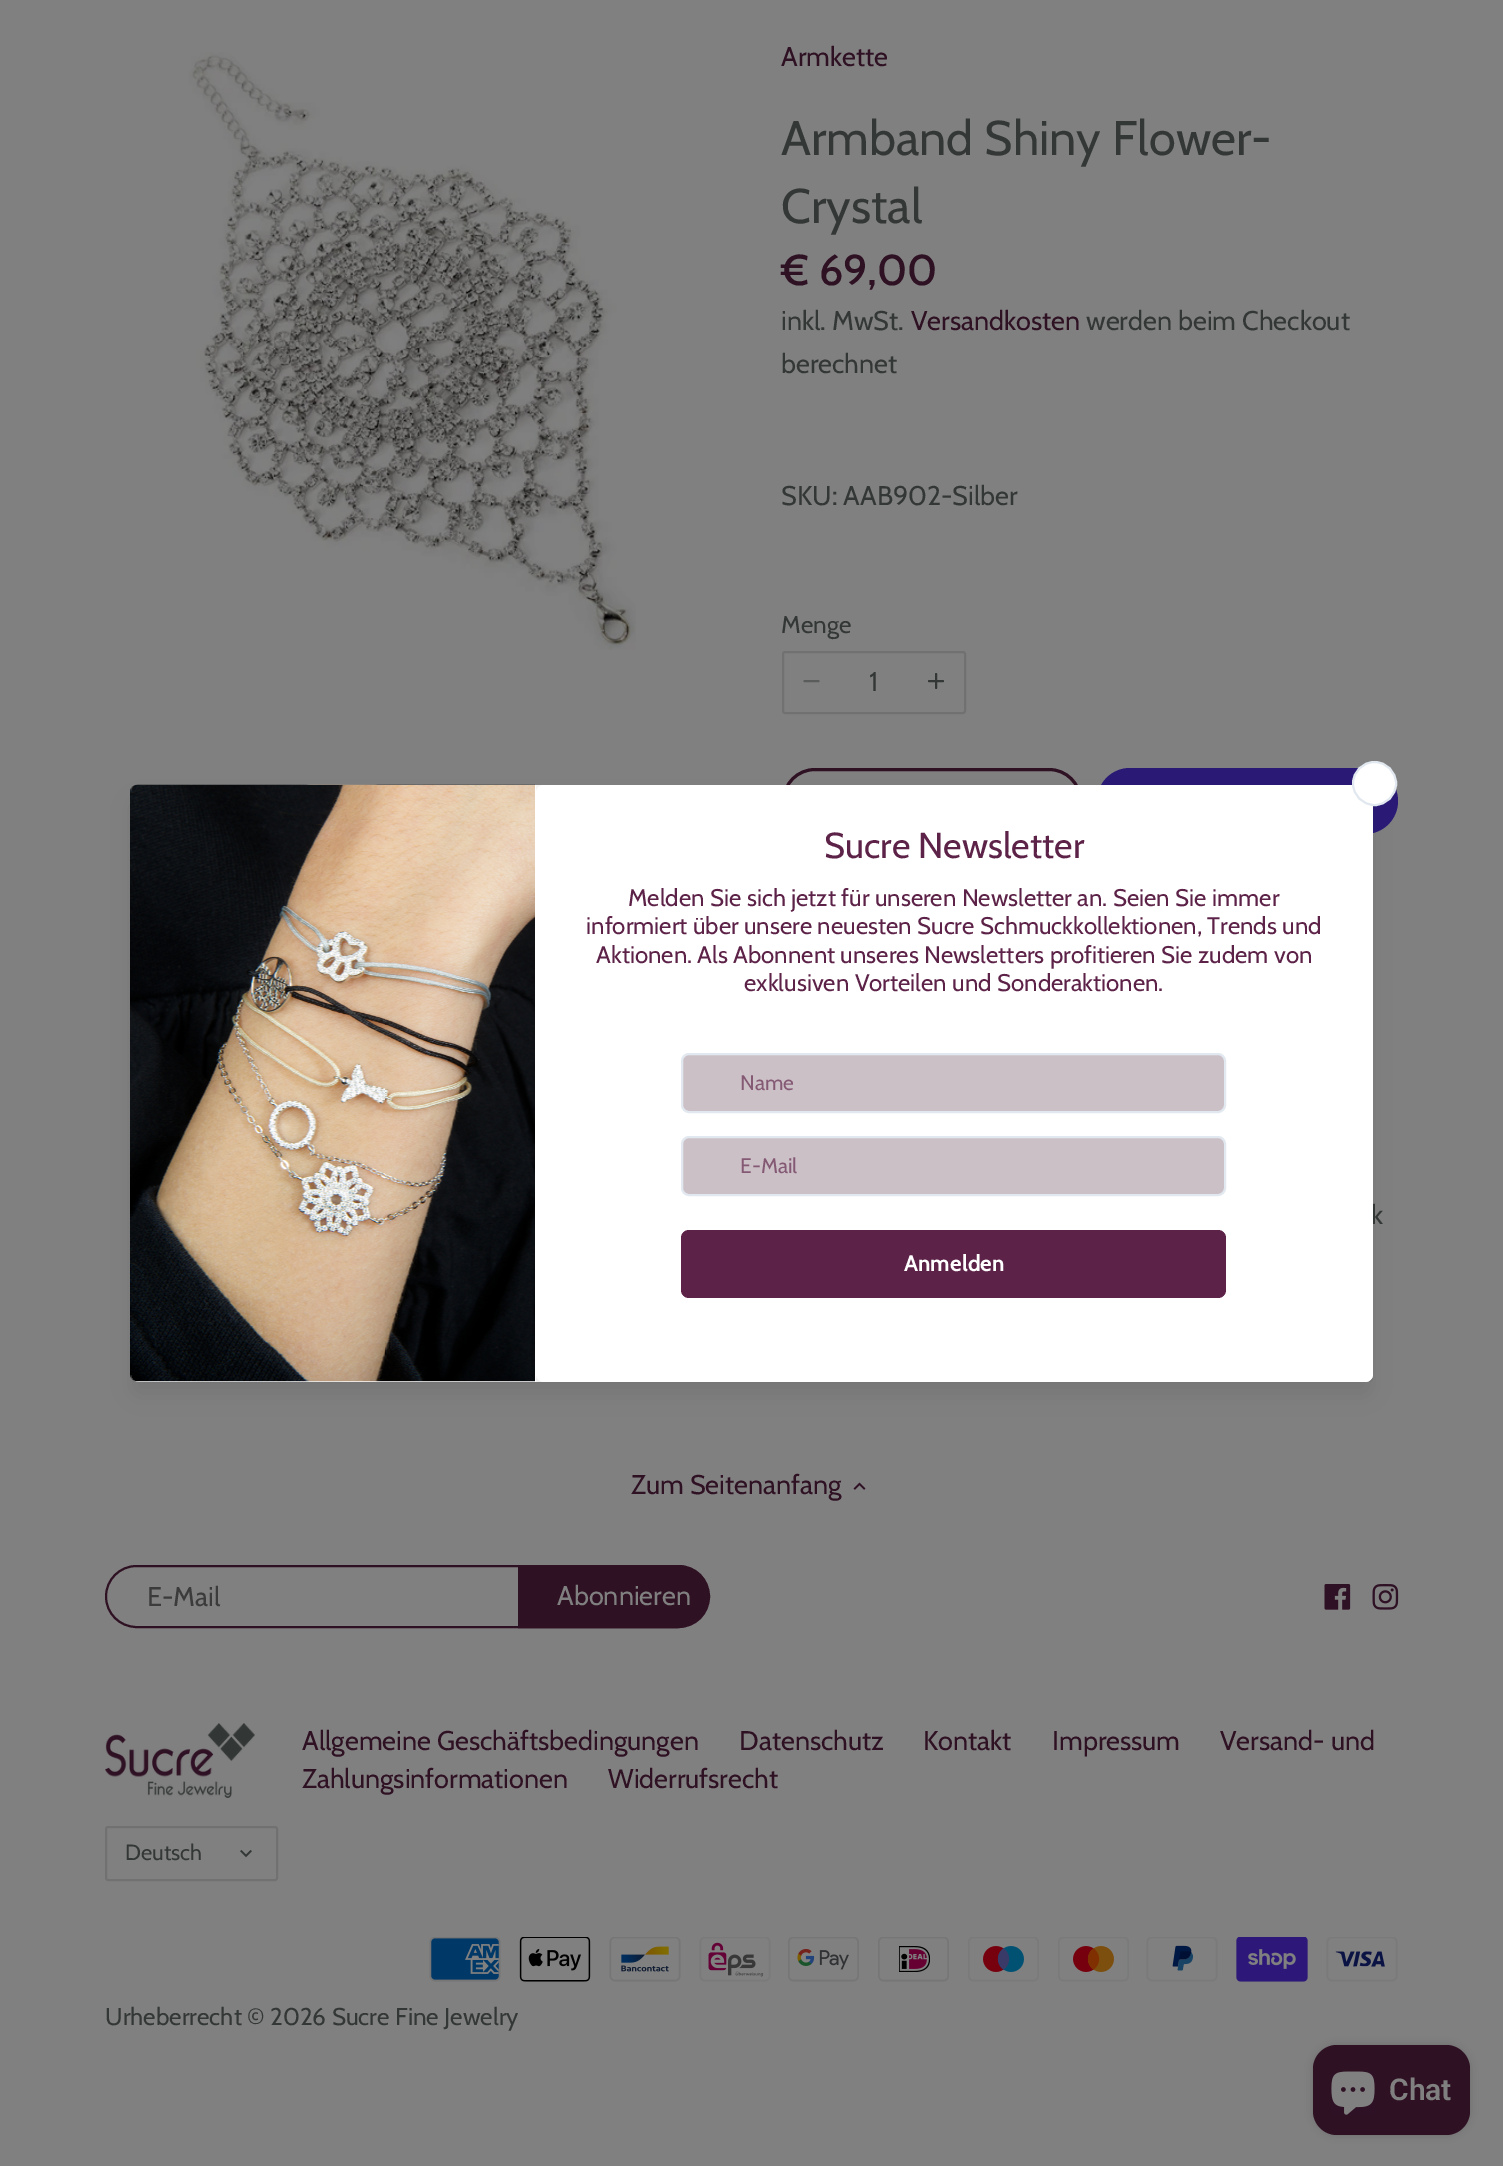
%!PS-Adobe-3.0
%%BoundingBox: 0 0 1503 2166
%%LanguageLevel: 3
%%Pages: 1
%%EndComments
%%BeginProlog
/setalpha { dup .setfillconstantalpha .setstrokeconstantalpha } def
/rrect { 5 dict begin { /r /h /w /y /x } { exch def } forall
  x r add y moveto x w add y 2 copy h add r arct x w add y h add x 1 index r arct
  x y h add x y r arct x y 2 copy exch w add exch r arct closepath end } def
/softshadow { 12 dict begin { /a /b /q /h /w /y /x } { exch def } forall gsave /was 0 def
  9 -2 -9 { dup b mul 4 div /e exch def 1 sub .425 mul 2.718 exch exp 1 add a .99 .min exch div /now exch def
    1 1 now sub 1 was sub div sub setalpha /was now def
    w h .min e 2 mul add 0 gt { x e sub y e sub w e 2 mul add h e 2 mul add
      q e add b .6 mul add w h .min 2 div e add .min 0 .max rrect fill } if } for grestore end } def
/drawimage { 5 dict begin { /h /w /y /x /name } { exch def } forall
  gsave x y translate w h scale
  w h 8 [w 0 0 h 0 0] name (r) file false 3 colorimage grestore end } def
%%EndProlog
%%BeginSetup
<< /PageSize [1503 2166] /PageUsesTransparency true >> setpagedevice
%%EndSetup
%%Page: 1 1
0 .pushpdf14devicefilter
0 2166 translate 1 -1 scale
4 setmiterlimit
0.502 setgray
0 0 1503 2166 rectfill
(images/1.raw) 188 52 448 598 drawimage
0.439 0.443 0.439 setrgbcolor
2 setlinewidth
783 652 182 61 2 rrect stroke
0.349 0.361 0.357 setrgbcolor
1 setlinecap
1 setlinejoin
newpath 804.5 681 moveto 818.5 681 lineto stroke
0.2 0.22 0.212 setrgbcolor
newpath 936 674 moveto 936 688 lineto 929 681 moveto 943 681 lineto stroke
0.184 0.067 0.141 setrgbcolor
3 setlinewidth
0 setlinecap
0 setlinejoin
783.5 769.5 297 63 31.5 rrect stroke
0.165 0.102 0.463 setrgbcolor
1097 768 301 66 33 rrect fill
(images/2.raw) 853 1482 13 8 drawimage
0.184 0.067 0.141 setrgbcolor
2 setlinewidth
106 1566 601 61 30.5 rrect stroke
newpath 519 1566 moveto 678.5 1566 lineto 695.5 1566 709 1579.5 709 1596.5 curveto 709 1613.5 695.5 1627 678.5 1627 curveto 519 1627 lineto closepath gsave fill grestore
stroke
(images/3.raw) 1324 1584 27 26 drawimage
(images/4.raw) 1372 1584 27 26 drawimage
(images/5.raw) 105 1723 150 75 drawimage
0.439 0.443 0.439 setrgbcolor
106 1827 171 53 2 rrect stroke
(images/6.raw) 240 1850 12 8 drawimage
(images/7.raw) 429 1937 72 45 drawimage
(images/8.raw) 519 1937 72 45 drawimage
(images/9.raw) 609 1937 72 45 drawimage
(images/10.raw) 699 1937 72 45 drawimage
(images/11.raw) 788 1937 71 45 drawimage
(images/12.raw) 878 1937 71 45 drawimage
(images/13.raw) 968 1937 71 45 drawimage
(images/14.raw) 1058 1937 71 45 drawimage
(images/15.raw) 1146 1937 72 45 drawimage
(images/16.raw) 1236 1937 72 45 drawimage
(images/17.raw) 1326 1937 72 45 drawimage
0 setgray
135 804 1233 588 3 11 0.1 softshadow
1313 2045 157 90 24 4 0.15 softshadow
0.184 0.067 0.141 setrgbcolor
1313 2045 157 90 24 rrect fill
(images/19.raw) 1331 2071 44 44 drawimage
/Cabin-Regular [27 0 0 -27 0 0] selectfont
781 66 moveto (Armkette) show
/Cabin-Regular [48.6 0 0 -48.6 0 0] selectfont
0.2 0.22 0.212 setrgbcolor
781 155 moveto (Armband Shiny Flower-) show
781 223 moveto (Crystal) show
/Cabin-Medium [43 0 0 -43 0 0] selectfont
0.184 0.067 0.141 setrgbcolor
781 285 moveto (€ 69,00) show
/Cabin-Regular [27 0 0 -27 0 0] selectfont
0.2 0.22 0.212 setrgbcolor
781 330 moveto (inkl. MwSt.) show
0.184 0.067 0.141 setrgbcolor
911 330 moveto (Versandkosten) show
0.2 0.22 0.212 setrgbcolor
1086 330 moveto (werden beim Checkout) show
781 373 moveto (berechnet) show
781 505 moveto (SKU: AAB902-Silber) show
/Cabin-Regular [24.25 0 0 -24.25 0 0] selectfont
781 633 moveto (Menge) show
/Cabin-Regular [27 0 0 -27 0 0] selectfont
869 691 moveto (1) show
1371 1224 moveto (k) show
0.184 0.067 0.141 setrgbcolor
631 1494 moveto (Zum Seitenanfang) show
0.231 setgray
147 1606 moveto (E-Mail) show
0.502 setgray
557 1605 moveto (Abonnieren) show
0.184 0.067 0.141 setrgbcolor
302 1750 moveto (Allgemeine Geschäftsbedingungen) show
739 1750 moveto (Datenschutz) show
923 1750 moveto (Kontakt) show
1052 1750 moveto (Impressum) show
1220 1750 moveto (Versand- und) show
302 1788 moveto (Zahlungsinformationen) show
608 1788 moveto (Widerrufsrecht) show
/Cabin-Regular [22 0 0 -22 0 0] selectfont
0.2 0.22 0.212 setrgbcolor
125 1860 moveto (Deutsch) show
/Cabin-Regular [24.25 0 0 -24.25 0 0] selectfont
105 2025 moveto (Urheberrecht © 2026 Sucre Fine Jewelry) show
1 setgray
131 785 1242 597 8 rrect fill
(images/18.raw) 130 784 405 598 drawimage
gsave
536 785 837 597 rectclip
0 setgray
539 794 831 591 5 4.5 0.05 softshadow
540 789 828 588 3 15 0.12 softshadow
grestore
536 785 837 597 8 rrect fill
newpath 1374.5 783.5 21.5 0 360 arc closepath gsave fill grestore
0.886 0.91 0.941 setrgbcolor
stroke
/Cabin-Regular [36 0 0 -36 0 0] selectfont
0.365 0.133 0.282 setrgbcolor
824 858 moveto (Sucre Newsletter) show
/Cabin-Regular [24 0 0 -24 0 0] selectfont
628 906 moveto (Melden Sie sich jetzt für unseren Newsletter an. Seien Sie immer) show
586 934 moveto (informiert über unsere neuesten Sucre Schmuckkollektionen, Trends und) show
596 963 moveto (Aktionen. Als Abonnent unseres Newsletters profitieren Sie zudem von) show
744 991 moveto (exklusiven Vorteilen und Sonderaktionen.) show
0.8 0.753 0.78 setrgbcolor
682 1054 543 58 7 rrect gsave fill grestore
0.886 0.91 0.941 setrgbcolor
stroke
/Cabin-Regular [21 0 0 -21 0 0] selectfont
0.518 0.349 0.455 setrgbcolor
740 1090 moveto (Name) show
0.8 0.753 0.78 setrgbcolor
682 1137 543 58 7 rrect gsave fill grestore
0.886 0.91 0.941 setrgbcolor
stroke
0.518 0.349 0.455 setrgbcolor
740 1173 moveto (E-Mail) show
0.365 0.133 0.282 setrgbcolor
681 1230 545 68 8 rrect fill
/Cabin-Bold [22.5 0 0 -22.5 0 0] selectfont
1 setgray
904 1271 moveto (Anmelden) show
/Roboto-SemiBold [30 0 0 -30 0 0] selectfont
0.502 setgray
1389 2100 moveto (Chat) show
.poppdf14devicefilter showpage
%%EOF
